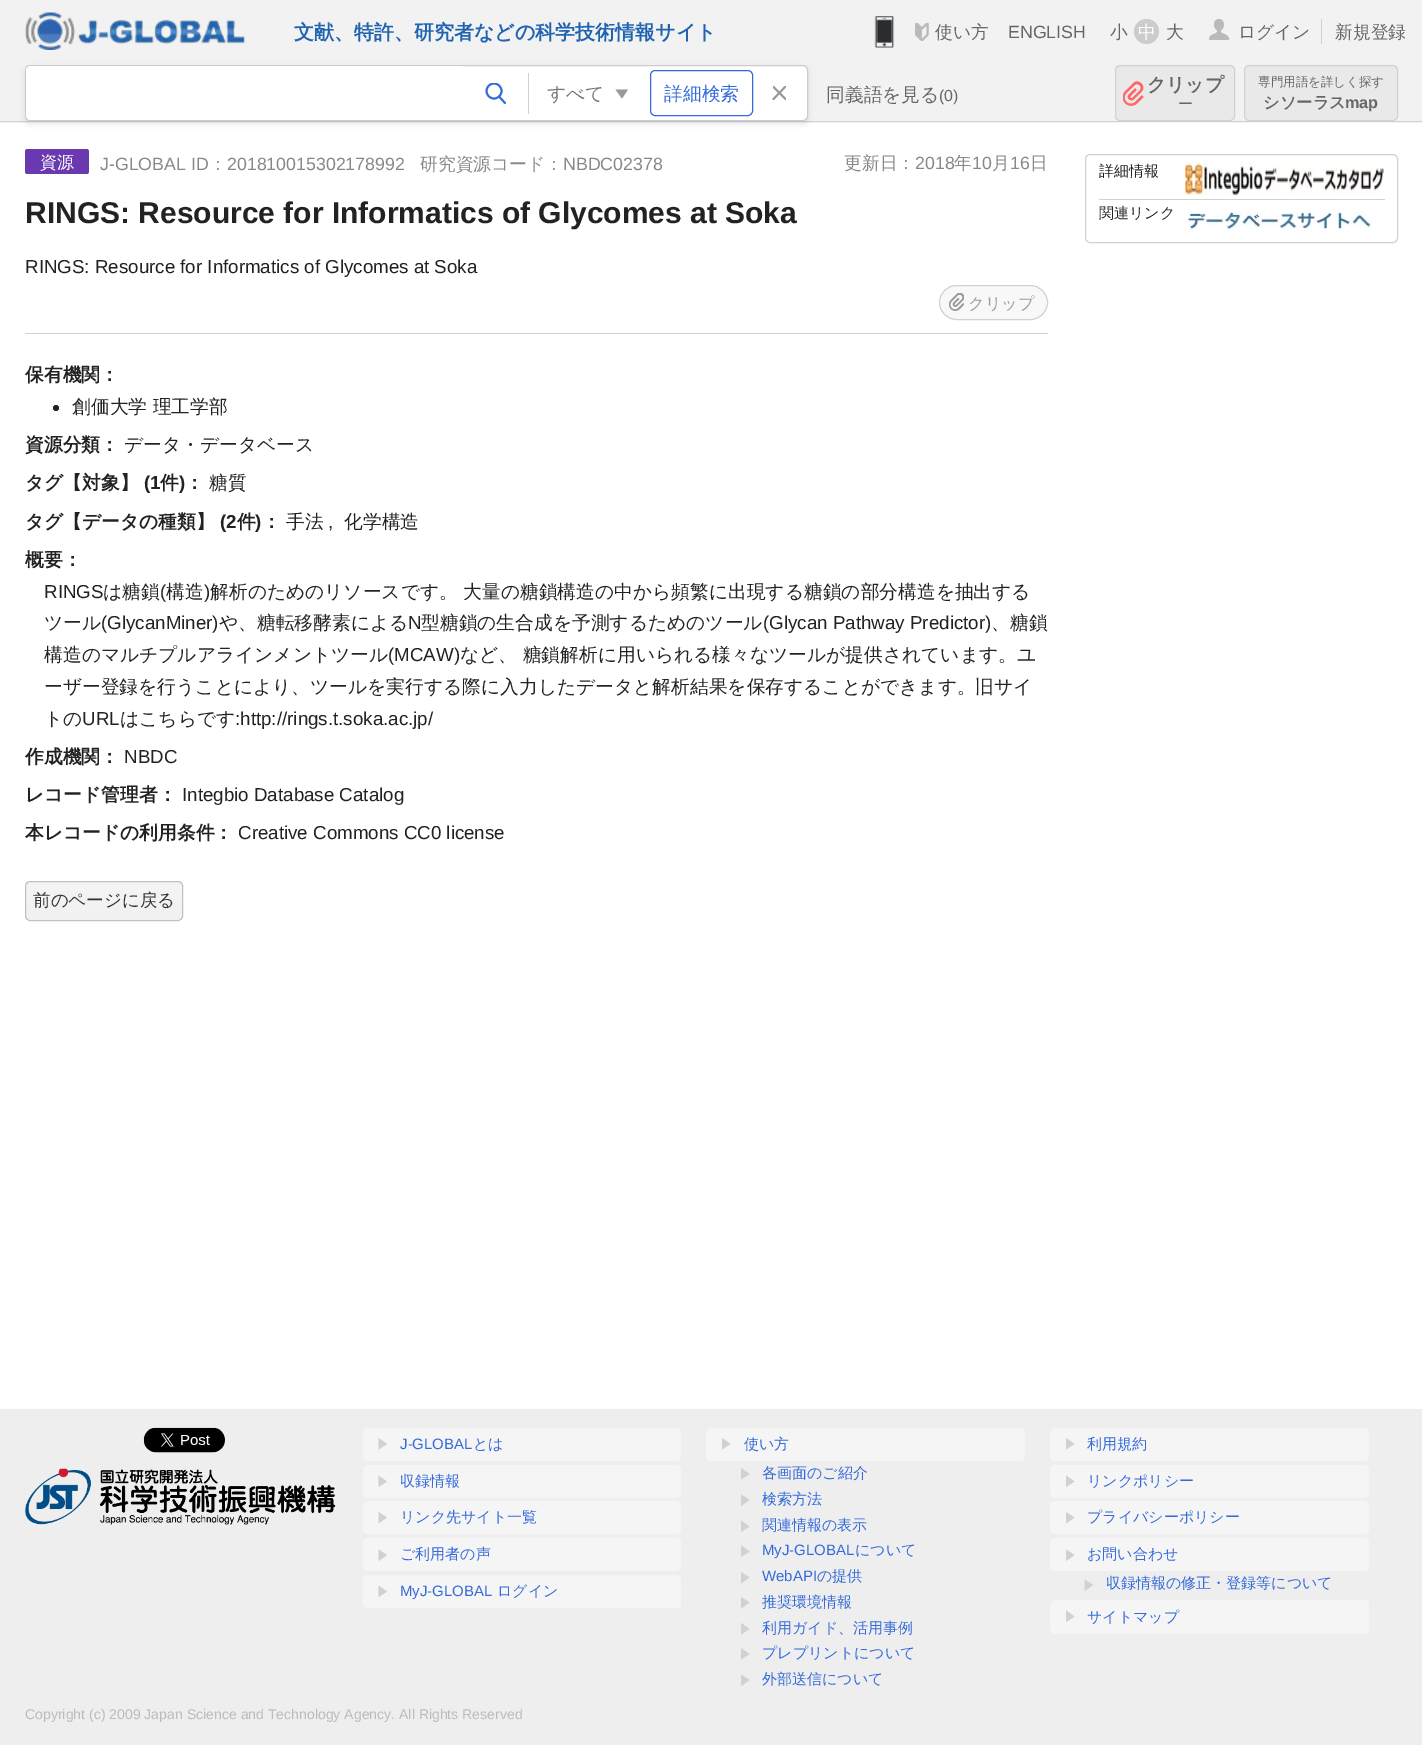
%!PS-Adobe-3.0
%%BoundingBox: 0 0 1422 1745
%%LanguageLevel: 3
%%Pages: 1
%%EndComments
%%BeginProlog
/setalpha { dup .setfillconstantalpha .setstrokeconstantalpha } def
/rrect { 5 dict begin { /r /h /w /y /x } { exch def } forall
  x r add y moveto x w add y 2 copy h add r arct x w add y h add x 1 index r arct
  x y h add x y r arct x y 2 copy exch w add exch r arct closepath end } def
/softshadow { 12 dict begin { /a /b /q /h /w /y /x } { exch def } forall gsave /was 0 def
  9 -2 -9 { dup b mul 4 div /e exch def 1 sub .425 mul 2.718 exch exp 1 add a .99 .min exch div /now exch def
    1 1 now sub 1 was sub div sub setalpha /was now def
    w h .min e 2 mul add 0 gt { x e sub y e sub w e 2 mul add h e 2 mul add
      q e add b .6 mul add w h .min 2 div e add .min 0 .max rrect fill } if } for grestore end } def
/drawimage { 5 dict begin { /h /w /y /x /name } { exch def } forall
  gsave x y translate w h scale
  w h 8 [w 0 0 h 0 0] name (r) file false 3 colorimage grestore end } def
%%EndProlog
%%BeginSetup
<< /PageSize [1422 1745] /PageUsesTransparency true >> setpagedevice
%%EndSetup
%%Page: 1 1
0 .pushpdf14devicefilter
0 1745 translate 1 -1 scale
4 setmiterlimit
1 setgray
0 0 1422 1745 rectfill
0.949 setgray
0 0 1422 123 rectfill
(images/1.raw) 25 12 220 38 drawimage
(images/2.raw) 874 16 21 32 drawimage
(images/3.raw) 915 23 14 18 drawimage
0.8 setgray
newpath 1146.5 31.5 12.5 0 360 arc closepath fill
(images/4.raw) 1209 19 21 21 drawimage
0.82 setgray
1321 19 1 25 rectfill
0 121 1422 1 rectfill
0 setgray
25 68 783 56 5 3 0.1 softshadow
1 setgray
25.5 65.5 782 55 4.5 rrect gsave fill grestore
0.8 setgray
stroke
gsave
26 66 780 54 4 rrect clip newpath
1 setgray
26 66 439 54 5 rrect fill
grestore
gsave
485 83 21 21 rectclip
0.204 0.416 0.851 setrgbcolor
1.9 setlinewidth
newpath 494 91 7.5 0 360 arc closepath stroke
grestore
0.204 0.416 0.851 setrgbcolor
1.9 setlinewidth
1 setlinecap
1 setlinejoin
newpath 499 96.5 moveto 505 103 lineto stroke
0.6 setgray
newpath 628 89.5 moveto 622 98.5 lineto 615.5 89.5 lineto closepath fill
0.82 setgray
528 73 1 41 rectfill
0.204 0.416 0.851 setrgbcolor
1 setlinewidth
0 setlinecap
0 setlinejoin
650.5 70.5 102 45 4.5 rrect stroke
0.6 setgray
1.9 setlinewidth
1 setlinecap
1 setlinejoin
newpath 773.5 99 moveto 785 87 lineto stroke
gsave
773 86 13 14 rectclip
newpath 773.5 87 moveto 785.5 99 lineto stroke
grestore
0.914 setgray
1115 65 120 56 5 rrect fill
(images/5.raw) 1123 81 21 25 drawimage
0.82 setgray
1 setlinewidth
0 setlinecap
0 setlinejoin
1115.5 65.5 119 55 4.5 rrect stroke
0.914 setgray
1244.5 65.5 153 55 4.5 rrect gsave fill grestore
0.82 setgray
stroke
25 333 1023 1 rectfill
0.42 0.224 0.686 setrgbcolor
25 149 64 25 2.5 rrect fill
0.973 setgray
939 285 109 35 17.5 rrect fill
(images/6.raw) 949 293 15 18 drawimage
0.82 setgray
939.5 285.5 108 34 17 rrect stroke
0.133 setgray
newpath 56 408 3 0 360 arc closepath fill
gsave
25 881 158 40 5 rrect clip newpath
gsave newpath 25 881 moveto 183 881 lineto 183 883 lineto 25 883 lineto closepath clip newpath
<< /ShadingType 2 /ColorSpace /DeviceRGB /Coords [104 845 104 883] /Extend [true true] /Function << /FunctionType 2 /Domain [0 1] /C0 [0.961 0.961 0.961] /C1 [0.945 0.945 0.945] /N 1 >> >> shfill grestore
gsave newpath 25 883 moveto 183 883 lineto 183 920 lineto 25 920 lineto closepath clip newpath
<< /ShadingType 2 /ColorSpace /DeviceRGB /Coords [104 883 104 920] /Extend [true true] /Function << /FunctionType 2 /Domain [0 1] /C0 [0.961 0.961 0.961] /C1 [0.945 0.945 0.945] /N 1 >> >> shfill grestore
grestore
0.761 setgray
25.5 881.5 157 39 4.5 rrect stroke
0.82 setgray
1085.5 154.5 312 88 4.5 rrect stroke
1099 199 286 1 rectfill
(images/7.raw) 1185 162 199 33 drawimage
(images/8.raw) 1185 211 187 23 drawimage
0.933 setgray
0 1409 1422 336 rectfill
(images/9.raw) 143 1427 82 26 drawimage
(images/10.raw) 25 1468 311 57 drawimage
0.961 setgray
363 1428 318 33 5 rrect fill
0.82 setgray
newpath 378.5 1438 moveto 387 1444 lineto 378.5 1449.5 lineto closepath fill
0.961 setgray
363 1465 318 33 5 rrect fill
0.82 setgray
newpath 378.5 1475.5 moveto 387 1481.5 lineto 378.5 1487 lineto closepath fill
0.961 setgray
363 1501 318 33 5 rrect fill
0.82 setgray
newpath 378.5 1512 moveto 387 1517.5 lineto 378.5 1523.5 lineto closepath fill
0.961 setgray
363 1538 318 33 5 rrect fill
0.82 setgray
newpath 378.5 1549.5 moveto 387 1555 lineto 378.5 1561 lineto closepath fill
0.961 setgray
363 1575 318 33 5 rrect fill
0.82 setgray
newpath 378.5 1585.5 moveto 387 1591.5 lineto 378.5 1597 lineto closepath fill
0.961 setgray
706 1428 319 33 5 rrect fill
0.82 setgray
newpath 722 1438 moveto 730.5 1444 lineto 722 1449.5 lineto closepath 741 1468 moveto 749.5 1474 lineto 741 1479.5 lineto closepath fill
newpath 741 1494.5 moveto 749.5 1500 lineto 741 1506 lineto closepath 741 1520.5 moveto 749.5 1526.5 lineto 741 1532 lineto closepath 741 1545.5 moveto 749.5 1551.5 lineto 741 1557 lineto closepath fill
newpath 741 1572 moveto 749.5 1577.5 lineto 741 1583.5 lineto closepath 741 1597 moveto 749.5 1602.5 lineto 741 1608.5 lineto closepath 741 1623 moveto 749.5 1629 lineto 741 1634.5 lineto closepath fill
newpath 741 1648 moveto 749.5 1654 lineto 741 1659.5 lineto closepath 741 1674.5 moveto 749.5 1680 lineto 741 1686 lineto closepath fill
0.961 setgray
1050 1428 319 33 5 rrect fill
0.82 setgray
newpath 1066 1438 moveto 1074.5 1444 lineto 1066 1449.5 lineto closepath fill
0.961 setgray
1050 1465 319 33 5 rrect fill
0.82 setgray
newpath 1066 1475.5 moveto 1074.5 1481.5 lineto 1066 1487 lineto closepath fill
0.961 setgray
1050 1501 319 33 5 rrect fill
0.82 setgray
newpath 1066 1512 moveto 1074.5 1517.5 lineto 1066 1523.5 lineto closepath fill
0.961 setgray
1050 1538 319 33 5 rrect fill
0.82 setgray
newpath 1066 1549.5 moveto 1074.5 1555 lineto 1066 1561 lineto closepath 1084.5 1579.5 moveto 1093 1585 lineto 1084.5 1591 lineto closepath fill
0.961 setgray
1050 1600 319 34 5 rrect fill
0.82 setgray
newpath 1066 1610.5 moveto 1074.5 1616.5 lineto 1066 1622 lineto closepath fill
/WenQuanYiZenHei-Bold [20 0 0 -20 0 0] selectfont
0.125 0.392 0.694 setrgbcolor
294 39 moveto (文献、特許、研究者などの科学技術情報サイト) show
/WenQuanYiZenHei-Medium [17.75 0 0 -17.75 0 0] selectfont
0.4 setgray
935 38 moveto (使い方) show
/LiberationSans-Regular [17.75 0 0 -17.75 0 0] selectfont
1008 38 moveto (ENGLISH) show
/WenQuanYiZenHei-Medium [17.75 0 0 -17.75 0 0] selectfont
1110 38 moveto (小) show
1 setgray
1138 38 moveto (中) show
0.4 setgray
1166 38 moveto (大) show
1238 38 moveto (ログイン) show
1335 38 moveto (新規登録) show
/WenQuanYiZenHei-Medium [18.75 0 0 -18.75 0 0] selectfont
0.467 setgray
547 100 moveto (すべて) show
0.204 0.416 0.851 setrgbcolor
664 100 moveto (詳細検索) show
0.4 setgray
826 101 moveto (同義語を見る) show
/LiberationSans-Regular [16 0 0 -16 0 0] selectfont
939 101 moveto (\(0\)) show
/WenQuanYiZenHei-Bold [18.75 0 0 -18.75 0 0] selectfont
1147 91 moveto (クリップ) show
/WenQuanYiZenHei-Medium [15 0 0 -15 0 0] selectfont
1178 109 moveto (ー) show
/WenQuanYiZenHei-Medium [12.5 0 0 -12.5 0 0] selectfont
1258 86 moveto (専門用語を詳しく探す) show
/WenQuanYiZenHei-Bold [16.25 0 0 -16.25 0 0] selectfont
1263 108 moveto (シソーラス) show
/LiberationSans-Bold [16.25 0 0 -16.25 0 0] selectfont
1345 108 moveto (map) show
/WenQuanYiZenHei-Medium [17 0 0 -17 0 0] selectfont
1 setgray
40 168 moveto (資源) show
/LiberationSans-Regular [17.75 0 0 -17.75 0 0] selectfont
0.533 setgray
100 170 moveto (J-GLOBAL ID) show
/WenQuanYiZenHei-Medium [17.75 0 0 -17.75 0 0] selectfont
209 170 moveto (：) show
/LiberationSans-Regular [17.75 0 0 -17.75 0 0] selectfont
227 170 moveto (201810015302178992) show
/WenQuanYiZenHei-Medium [17.75 0 0 -17.75 0 0] selectfont
420 170 moveto (研究資源コード：) show
/LiberationSans-Regular [17.75 0 0 -17.75 0 0] selectfont
563 170 moveto (NBDC02378) show
/WenQuanYiZenHei-Medium [17.75 0 0 -17.75 0 0] selectfont
844 169 moveto (更新日：) show
/LiberationSans-Regular [17.75 0 0 -17.75 0 0] selectfont
915 169 moveto (2018) show
/WenQuanYiZenHei-Medium [17.75 0 0 -17.75 0 0] selectfont
954 169 moveto (年) show
/LiberationSans-Regular [17.75 0 0 -17.75 0 0] selectfont
972 169 moveto (10) show
/WenQuanYiZenHei-Medium [17.75 0 0 -17.75 0 0] selectfont
992 169 moveto (月) show
/LiberationSans-Regular [17.75 0 0 -17.75 0 0] selectfont
1010 169 moveto (16) show
/WenQuanYiZenHei-Medium [17.75 0 0 -17.75 0 0] selectfont
1030 169 moveto (日) show
/LiberationSans-Bold [30 0 0 -30 0 0] selectfont
0.133 setgray
25 223 moveto (RINGS: Resource for Informatics of Glycomes at Soka) show
/LiberationSans-Regular [18.75 0 0 -18.75 0 0] selectfont
25 273 moveto (RINGS: Resource for Informatics of Glycomes at Soka) show
/WenQuanYiZenHei-Medium [16.25 0 0 -16.25 0 0] selectfont
0.6 setgray
968 309 moveto (クリップ) show
/WenQuanYiZenHei-Bold [18.75 0 0 -18.75 0 0] selectfont
0.133 setgray
25 381 moveto (保有機関：) show
/WenQuanYiZenHei-Medium [18.75 0 0 -18.75 0 0] selectfont
72 413 moveto (創価大学 理工学部) show
/WenQuanYiZenHei-Bold [18.75 0 0 -18.75 0 0] selectfont
25 451 moveto (資源分類：) show
/WenQuanYiZenHei-Medium [18.75 0 0 -18.75 0 0] selectfont
124 451 moveto (データ・データベース) show
/WenQuanYiZenHei-Bold [18.75 0 0 -18.75 0 0] selectfont
25 489 moveto (タグ【対象】) show
/LiberationSans-Bold [18.75 0 0 -18.75 0 0] selectfont
144 489 moveto (\(1) show
/WenQuanYiZenHei-Bold [18.75 0 0 -18.75 0 0] selectfont
160 489 moveto (件) show
/LiberationSans-Bold [18.75 0 0 -18.75 0 0] selectfont
179 489 moveto (\)) show
/WenQuanYiZenHei-Bold [18.75 0 0 -18.75 0 0] selectfont
185 489 moveto (：) show
/WenQuanYiZenHei-Medium [18.75 0 0 -18.75 0 0] selectfont
209 489 moveto (糖質) show
/WenQuanYiZenHei-Bold [18.75 0 0 -18.75 0 0] selectfont
25 528 moveto (タグ【データの種類】) show
/LiberationSans-Bold [18.75 0 0 -18.75 0 0] selectfont
220 528 moveto (\(2) show
/WenQuanYiZenHei-Bold [18.75 0 0 -18.75 0 0] selectfont
237 528 moveto (件) show
/LiberationSans-Bold [18.75 0 0 -18.75 0 0] selectfont
255 528 moveto (\)) show
/WenQuanYiZenHei-Bold [18.75 0 0 -18.75 0 0] selectfont
262 528 moveto (：) show
/WenQuanYiZenHei-Medium [18.75 0 0 -18.75 0 0] selectfont
286 528 moveto (手法) show
/LiberationSans-Regular [18.75 0 0 -18.75 0 0] selectfont
328 528 moveto (,) show
/WenQuanYiZenHei-Medium [18.75 0 0 -18.75 0 0] selectfont
344 528 moveto (化学構造) show
/WenQuanYiZenHei-Bold [18.75 0 0 -18.75 0 0] selectfont
25 566 moveto (概要：) show
/LiberationSans-Regular [18.75 0 0 -18.75 0 0] selectfont
44 598 moveto (RINGS) show
/WenQuanYiZenHei-Medium [18.75 0 0 -18.75 0 0] selectfont
103 598 moveto (は糖鎖) show
/LiberationSans-Regular [18.75 0 0 -18.75 0 0] selectfont
160 598 moveto (\() show
/WenQuanYiZenHei-Medium [18.75 0 0 -18.75 0 0] selectfont
166 598 moveto (構造) show
/LiberationSans-Regular [18.75 0 0 -18.75 0 0] selectfont
204 598 moveto (\)) show
/WenQuanYiZenHei-Medium [18.75 0 0 -18.75 0 0] selectfont
210 598 moveto (解析のためのリソースです。 大量の糖鎖構造の中から頻繁に出現する糖鎖の部分構造を抽出する) show
44 629 moveto (ツール) show
/LiberationSans-Regular [18.75 0 0 -18.75 0 0] selectfont
101 629 moveto (\(GlycanMiner\)) show
/WenQuanYiZenHei-Medium [18.75 0 0 -18.75 0 0] selectfont
219 629 moveto (や、糖転移酵素による) show
/LiberationSans-Regular [18.75 0 0 -18.75 0 0] selectfont
408 629 moveto (N) show
/WenQuanYiZenHei-Medium [18.75 0 0 -18.75 0 0] selectfont
421 629 moveto (型糖鎖の生合成を予測するためのツール) show
/LiberationSans-Regular [18.75 0 0 -18.75 0 0] selectfont
763 629 moveto (\(Glycan Pathway Predictor\)) show
/WenQuanYiZenHei-Medium [18.75 0 0 -18.75 0 0] selectfont
991 629 moveto (、糖鎖) show
44 661 moveto (構造のマルチプルアラインメントツール) show
/LiberationSans-Regular [18.75 0 0 -18.75 0 0] selectfont
388 661 moveto (\(MCAW\)) show
/WenQuanYiZenHei-Medium [18.75 0 0 -18.75 0 0] selectfont
460 661 moveto (など、 糖鎖解析に用いられる様々なツールが提供されています。ユ) show
44 693 moveto (ーザー登録を行うことにより、ツールを実行する際に入力したデータと解析結果を保存することができます。旧サイ) show
44 725 moveto (トの) show
/LiberationSans-Regular [18.75 0 0 -18.75 0 0] selectfont
82 725 moveto (URL) show
/WenQuanYiZenHei-Medium [18.75 0 0 -18.75 0 0] selectfont
120 725 moveto (はこちらです) show
/LiberationSans-Regular [18.75 0 0 -18.75 0 0] selectfont
235 725 moveto (:http://rings.t.soka.ac.jp/) show
/WenQuanYiZenHei-Bold [18.75 0 0 -18.75 0 0] selectfont
25 763 moveto (作成機関：) show
/LiberationSans-Regular [18.75 0 0 -18.75 0 0] selectfont
124 763 moveto (NBDC) show
/WenQuanYiZenHei-Bold [18.75 0 0 -18.75 0 0] selectfont
25 801 moveto (レコード管理者：) show
/LiberationSans-Regular [18.75 0 0 -18.75 0 0] selectfont
182 801 moveto (Integbio Database Catalog) show
/WenQuanYiZenHei-Bold [18.75 0 0 -18.75 0 0] selectfont
25 839 moveto (本レコードの利用条件：) show
/LiberationSans-Regular [18.75 0 0 -18.75 0 0] selectfont
238 839 moveto (Creative Commons CC0 license) show
/WenQuanYiZenHei-Medium [17.5 0 0 -17.5 0 0] selectfont
0.2 setgray
33 906 moveto (前のページに戻る) show
/WenQuanYiZenHei-Medium [15 0 0 -15 0 0] selectfont
0.133 setgray
1099 176 moveto (詳細情報) show
1099 218 moveto (関連リンク) show
/LiberationSans-Regular [15 0 0 -15 0 0] selectfont
0.204 0.416 0.851 setrgbcolor
400 1449 moveto (J-GLOBAL) show
/WenQuanYiZenHei-Medium [15 0 0 -15 0 0] selectfont
473 1449 moveto (とは) show
400 1486 moveto (収録情報) show
400 1522 moveto (リンク先サイト一覧) show
400 1559 moveto (ご利用者の声) show
/LiberationSans-Regular [15 0 0 -15 0 0] selectfont
400 1596 moveto (MyJ-GLOBAL) show
/WenQuanYiZenHei-Medium [15 0 0 -15 0 0] selectfont
497 1596 moveto (ログイン) show
744 1449 moveto (使い方) show
762 1478 moveto (各画面のご紹介) show
762 1504 moveto (検索方法) show
762 1530 moveto (関連情報の表示) show
/LiberationSans-Regular [15 0 0 -15 0 0] selectfont
762 1555 moveto (MyJ-GLOBAL) show
/WenQuanYiZenHei-Medium [15 0 0 -15 0 0] selectfont
855 1555 moveto (について) show
/LiberationSans-Regular [15 0 0 -15 0 0] selectfont
762 1581 moveto (WebAPI) show
/WenQuanYiZenHei-Medium [15 0 0 -15 0 0] selectfont
817 1581 moveto (の提供) show
762 1607 moveto (推奨環境情報) show
762 1633 moveto (利用ガイド、活用事例) show
762 1658 moveto (プレプリントについて) show
762 1684 moveto (外部送信について) show
1087 1449 moveto (利用規約) show
1087 1486 moveto (リンクポリシー) show
1087 1522 moveto (プライバシーポリシー) show
1087 1559 moveto (お問い合わせ) show
1106 1588 moveto (収録情報の修正・登録等について) show
1087 1622 moveto (サイトマップ) show
/LiberationSans-Regular [14.05 0 0 -14.05 0 0] selectfont
0.733 setgray
25 1719 moveto (Copyright \(c\) 2009 Japan Science and Technology Agency. All Rights Reserved) show
.poppdf14devicefilter showpage
%%EOF
